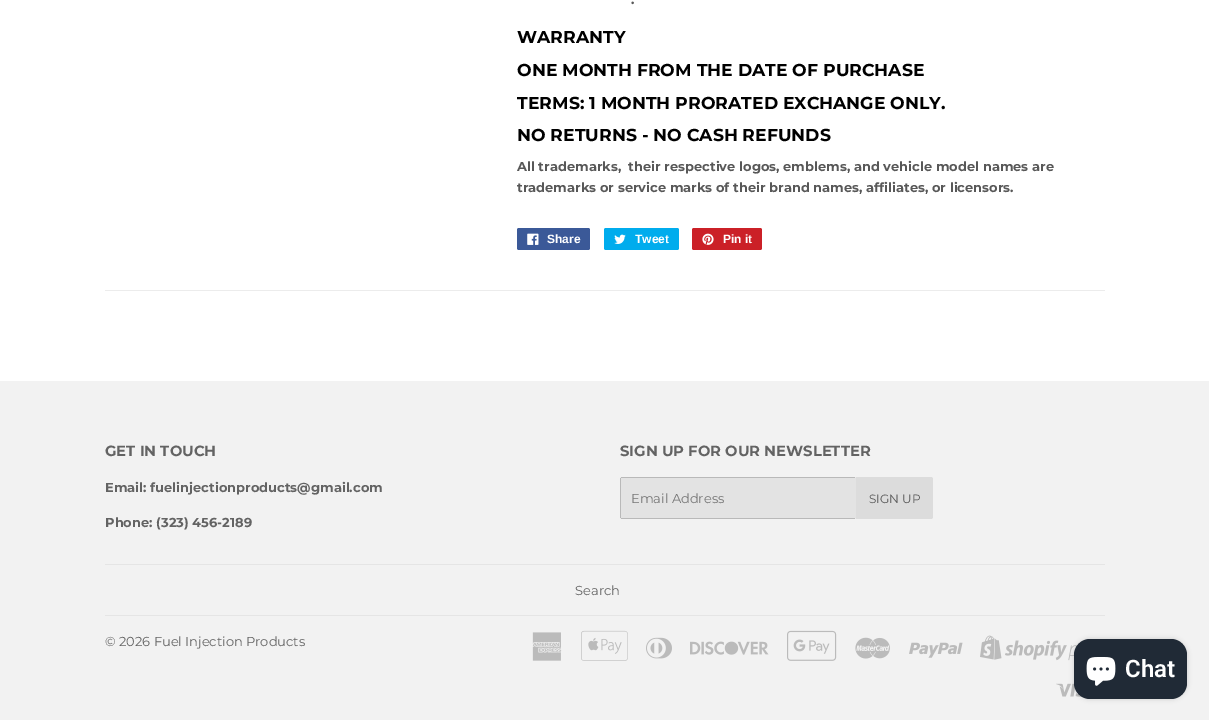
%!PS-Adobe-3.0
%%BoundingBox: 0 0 1209 720
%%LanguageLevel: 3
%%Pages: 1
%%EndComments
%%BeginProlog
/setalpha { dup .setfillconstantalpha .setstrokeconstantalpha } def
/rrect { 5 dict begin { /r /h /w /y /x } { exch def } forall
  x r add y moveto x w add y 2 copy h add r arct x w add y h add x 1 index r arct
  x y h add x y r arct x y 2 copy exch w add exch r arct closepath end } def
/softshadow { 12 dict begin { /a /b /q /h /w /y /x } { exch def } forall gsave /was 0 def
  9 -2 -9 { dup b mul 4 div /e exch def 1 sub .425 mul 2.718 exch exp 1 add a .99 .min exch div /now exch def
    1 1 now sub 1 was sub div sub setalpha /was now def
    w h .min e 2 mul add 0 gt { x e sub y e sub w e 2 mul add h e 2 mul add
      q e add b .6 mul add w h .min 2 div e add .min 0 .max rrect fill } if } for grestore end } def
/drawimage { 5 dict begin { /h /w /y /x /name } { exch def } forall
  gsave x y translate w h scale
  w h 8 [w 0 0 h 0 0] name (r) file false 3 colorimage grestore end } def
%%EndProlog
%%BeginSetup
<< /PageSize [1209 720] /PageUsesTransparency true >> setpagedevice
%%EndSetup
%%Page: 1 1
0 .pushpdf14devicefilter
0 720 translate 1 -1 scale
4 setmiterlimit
1 setgray
0 0 1209 720 rectfill
0.231 0.349 0.596 setrgbcolor
517 228 73 22 2 rrect fill
(images/1.raw) 527 233 12 12 drawimage
0 0.675 0.929 setrgbcolor
604 228 75 22 2 rrect fill
(images/2.raw) 614 234 12 10 drawimage
0.796 0.125 0.153 setrgbcolor
692 228 70 22 2 rrect fill
(images/3.raw) 702 233 12 12 drawimage
0.925 setgray
105 290 1000 1 rectfill
0.949 setgray
0 381 1209 339 rectfill
0.89 setgray
620 477 236 42 2 rrect fill
0.725 setgray
621 477 234 1 rectfill
621 518 234 1 rectfill
620 478 1 40 rectfill
0.863 setgray
newpath 856 477 moveto 931 477 lineto 932 477 933 478 933 479 curveto 933 517 lineto 933 518 932 519 931 519 curveto 856 519 lineto closepath fill
0.898 setgray
105 564 1000 1 rectfill
105 615 1000 1 rectfill
(images/4.raw) 532 632 30 29 drawimage
(images/5.raw) 581 630 47 31 drawimage
(images/6.raw) 646 637 26 22 drawimage
(images/7.raw) 690 641 79 14 drawimage
(images/8.raw) 787 630 50 31 drawimage
(images/9.raw) 855 637 35 22 drawimage
(images/10.raw) 909 642 54 16 drawimage
(images/11.raw) 980 635 97 26 drawimage
(images/12.raw) 1056 683 27 14 drawimage
0 setgray
1074 639 113 60 16 2.5 0.15 softshadow
0.125 0.165 0.212 setrgbcolor
1074 639 113 60 16 rrect fill
(images/13.raw) 1086 657 30 29 drawimage
/Montserrat-Bold [13 0 0 -13 0 0] selectfont
0.345 setgray
631 4 moveto (.) show
/Montserrat-Bold [17.3 0 0 -17.3 0 0] selectfont
0 setgray
517 43 moveto (WARRANTY) show
517 76 moveto (ONE MONTH FROM THE DATE OF PURCHASE) show
517 109 moveto (TERMS: 1 MONTH PRORATED EXCHANGE ONLY.) show
517 141 moveto (NO RETURNS - NO CASH REFUNDS) show
/Montserrat-Bold [13 0 0 -13 0 0] selectfont
0.345 setgray
517 171 moveto (All trademarks,  their respective logos, emblems, and vehicle model names are) show
517 192 moveto (trademarks or service marks of their brand names, affiliates, or licensors.) show
/LiberationSans-Bold [12 0 0 -12 0 0] selectfont
1 setgray
547 243 moveto (Share) show
635 243 moveto (Tweet) show
723 243 moveto (Pin it) show
/Montserrat-Bold [14.75 0 0 -14.75 0 0] selectfont
0.388 setgray
105 456 moveto (GET IN TOUCH) show
/Montserrat-Bold [13 0 0 -13 0 0] selectfont
105 492 moveto (Email: fuelinjectionproducts@gmail.com) show
105 527 moveto (Phone: \(323\) 456-2189) show
/Montserrat-Bold [14.75 0 0 -14.75 0 0] selectfont
620 456 moveto (SIGN UP FOR OUR NEWSLETTER) show
/Montserrat-Regular [13 0 0 -13 0 0] selectfont
0.459 setgray
631 503 moveto (Email Address) show
/Montserrat-Regular [12 0 0 -12 0 0] selectfont
0.345 setgray
869 503 moveto (SIGN UP) show
/Montserrat-Regular [13 0 0 -13 0 0] selectfont
0.388 setgray
575 595 moveto (Search) show
105 646 moveto (© 2026 Fuel Injection Products) show
/Roboto-SemiBold [24 0 0 -24 0 0] selectfont
1 setgray
1125 677 moveto (Chat) show
.poppdf14devicefilter showpage
%%EOF
